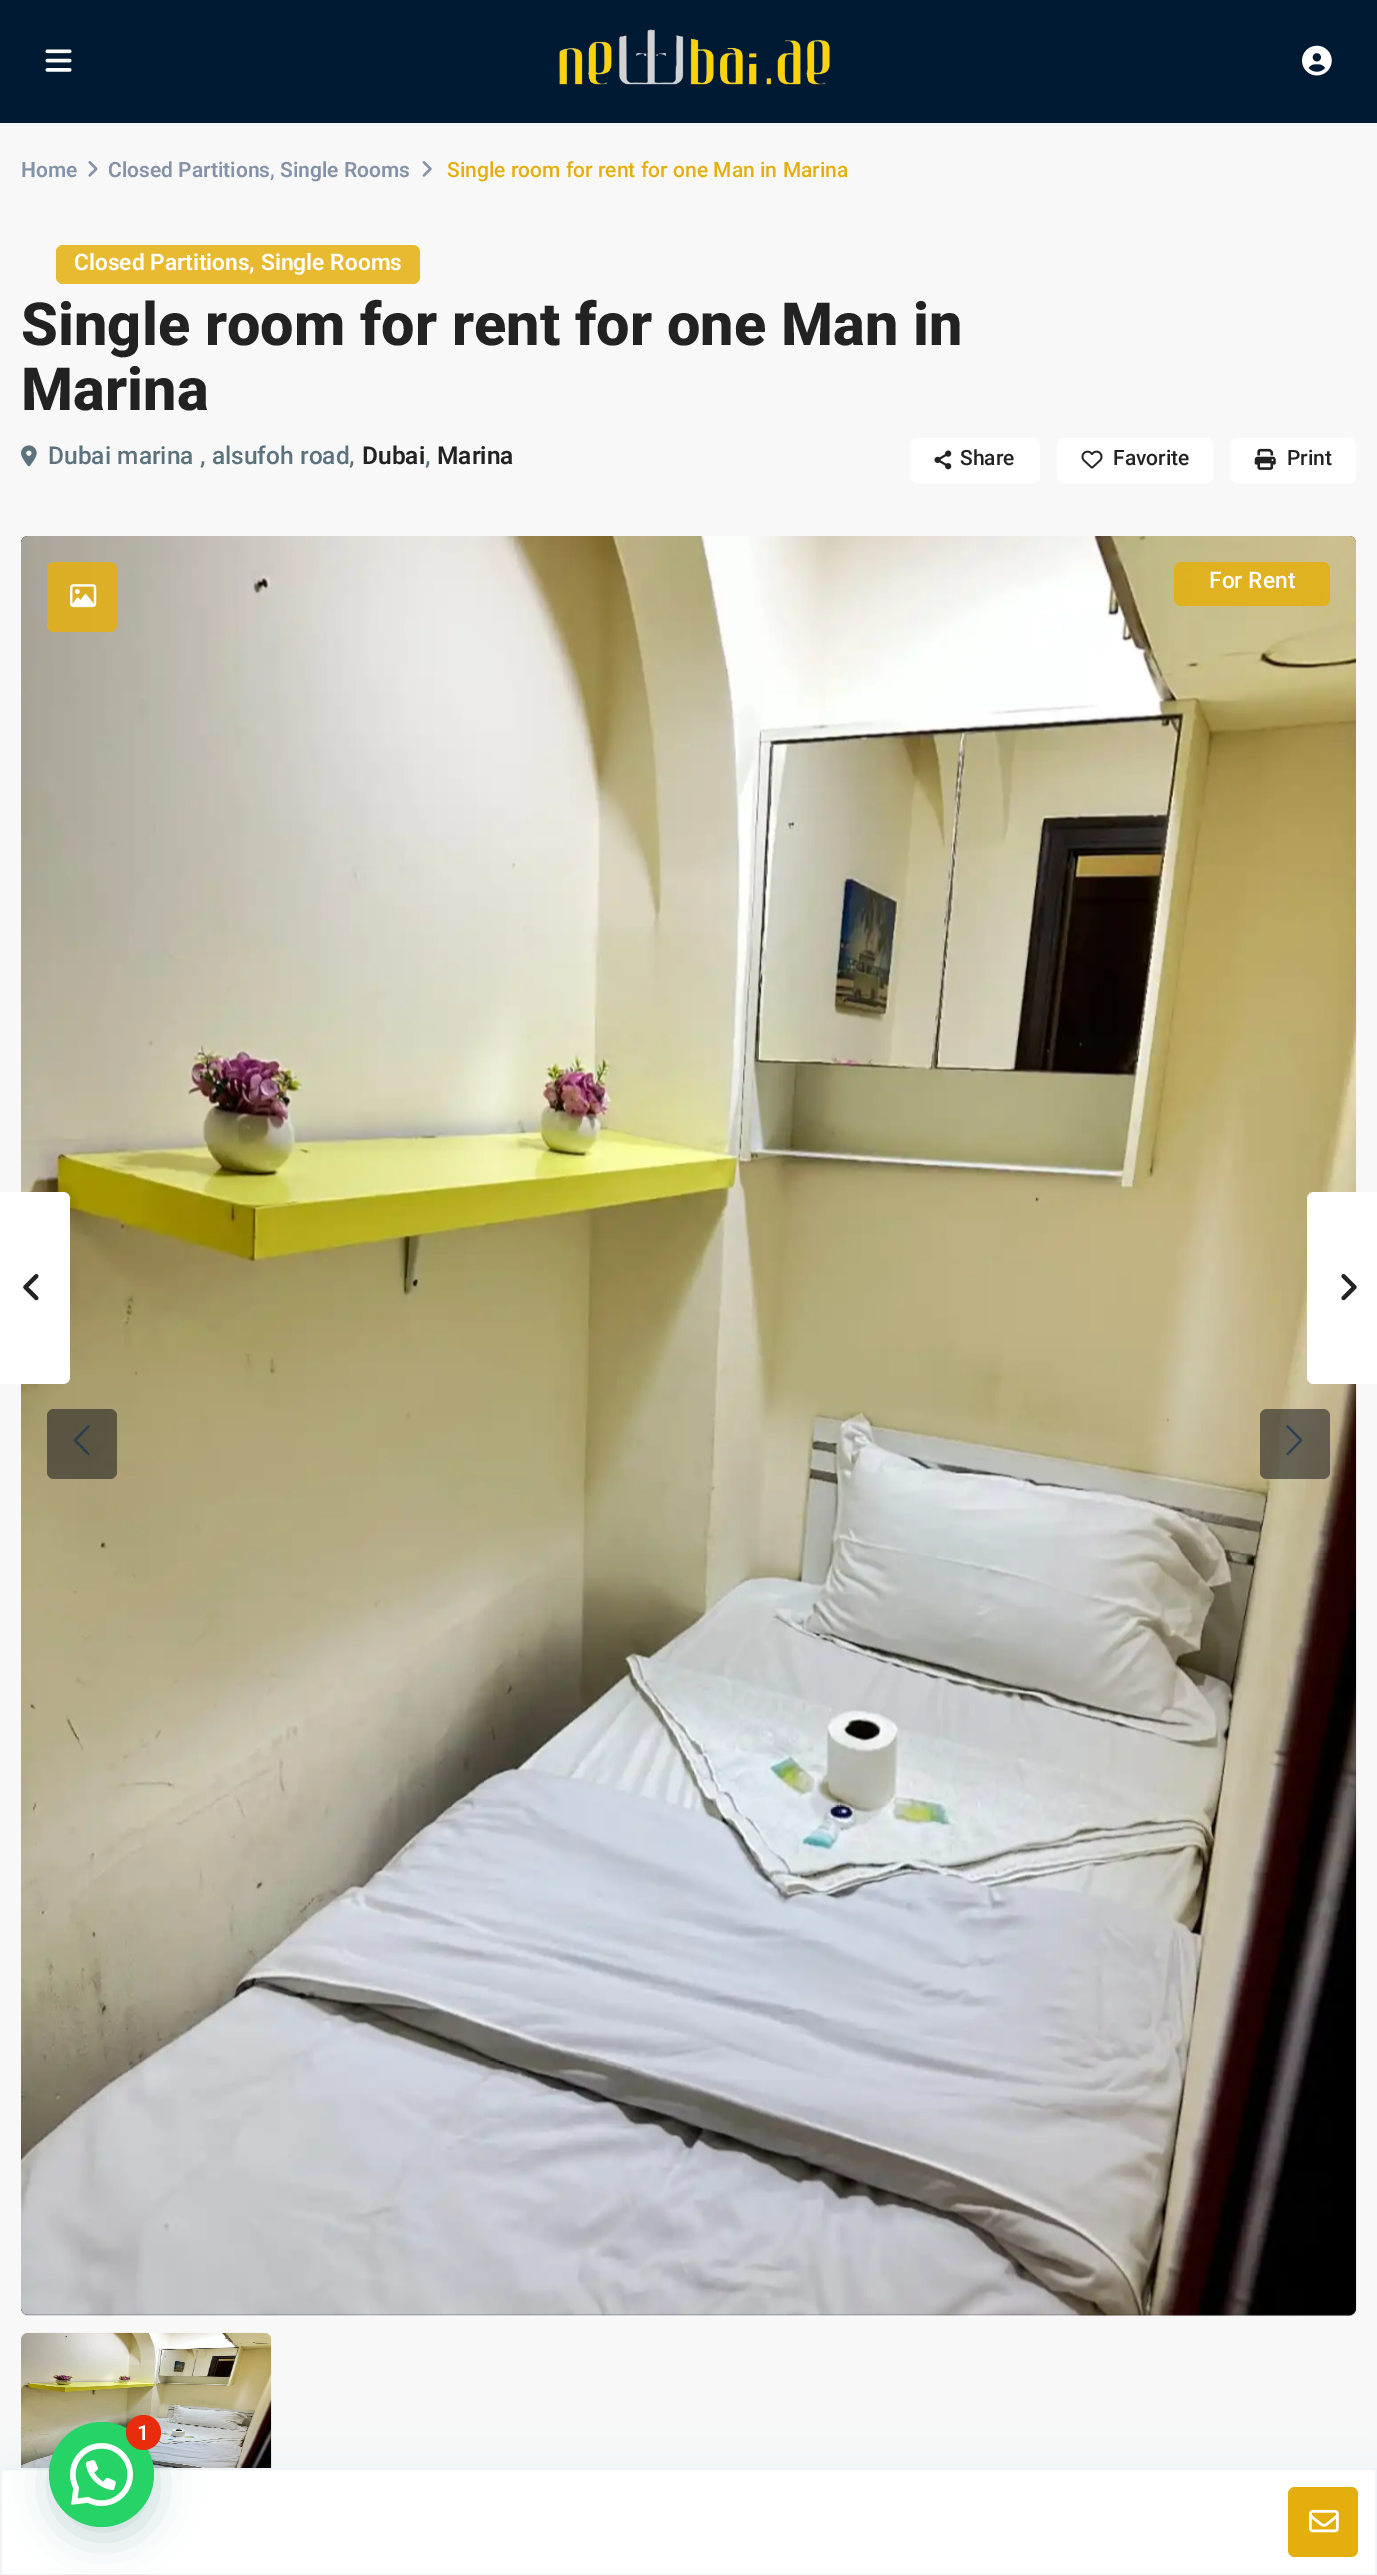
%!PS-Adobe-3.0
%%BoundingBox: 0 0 1377 2575
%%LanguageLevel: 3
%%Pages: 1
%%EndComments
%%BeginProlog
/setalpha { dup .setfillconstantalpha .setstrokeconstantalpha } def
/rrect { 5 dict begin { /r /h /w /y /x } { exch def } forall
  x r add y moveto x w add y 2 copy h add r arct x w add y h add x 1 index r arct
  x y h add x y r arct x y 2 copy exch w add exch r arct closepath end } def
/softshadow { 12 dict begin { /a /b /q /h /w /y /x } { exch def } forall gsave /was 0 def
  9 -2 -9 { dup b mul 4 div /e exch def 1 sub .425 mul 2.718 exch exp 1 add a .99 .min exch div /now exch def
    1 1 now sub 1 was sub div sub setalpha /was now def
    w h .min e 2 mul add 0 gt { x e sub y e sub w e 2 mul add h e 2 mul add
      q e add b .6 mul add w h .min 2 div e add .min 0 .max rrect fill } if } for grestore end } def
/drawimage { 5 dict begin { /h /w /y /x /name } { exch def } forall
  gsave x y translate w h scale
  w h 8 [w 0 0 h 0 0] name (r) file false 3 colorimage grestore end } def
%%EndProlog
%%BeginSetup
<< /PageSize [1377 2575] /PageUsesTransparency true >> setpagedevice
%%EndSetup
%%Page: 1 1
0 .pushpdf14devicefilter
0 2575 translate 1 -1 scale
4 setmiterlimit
0.973 setgray
0 0 1377 2575 rectfill
0 0.102 0.2 setrgbcolor
0 0 1377 123 rectfill
(images/1.raw) 45 49 27 23 drawimage
(images/2.raw) 559 29 271 56 drawimage
(images/3.raw) 1302 45 30 31 drawimage
(images/4.raw) 88 161 10 16 drawimage
(images/5.raw) 422 161 10 16 drawimage
0.906 0.729 0.188 setrgbcolor
56 245 364 39 7 rrect fill
(images/6.raw) 21 445 16 22 drawimage
1 setgray
910 438 130 45 7 rrect fill
(images/7.raw) 934 450 18 20 drawimage
1057 438 156 45 7 rrect fill
(images/8.raw) 1081 450 22 19 drawimage
1230 438 126 45 7 rrect fill
(images/9.raw) 1254 448 22 22 drawimage
0.133 setgray
21 536 1335 1779 7 rrect fill
(images/10.raw) 21 536 1336 1780 drawimage
0.59 setalpha
47 1409 70 70 7 rrect fill
1 setalpha
(images/11.raw) 73 1425 17 31 drawimage
0.59 setalpha
1260 1409 70 70 7 rrect fill
1 setalpha
(images/12.raw) 1286 1425 17 31 drawimage
(images/13.raw) 21 2332 251 136 drawimage
0.83 setalpha
0.894 0.686 0.051 setrgbcolor
47 562 70 70 7 rrect fill
1 setalpha
(images/14.raw) 70 584 27 24 drawimage
0.85 setalpha
1174 562 156 44 7 rrect fill
1 setalpha
1 setgray
newpath -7 1192 moveto 63 1192 lineto 67 1192 70 1195 70 1199 curveto 70 1377 lineto 70 1381 67 1384 63 1384 curveto -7 1384 lineto closepath fill
(images/15.raw) 23 1274 16 27 drawimage
newpath 1314 1192 moveto 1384 1192 lineto 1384 1384 lineto 1314 1384 lineto 1310 1384 1307 1381 1307 1377 curveto 1307 1199 lineto 1307 1195 1310 1192 1314 1192 curveto closepath fill
(images/16.raw) 1341 1274 16 27 drawimage
0.027 0.596 1 setrgbcolor
0 2485 1377 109 0 27 0.09 softshadow
1 setgray
newpath 1 2469 moveto 1376 2469 lineto 1376 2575 lineto 1 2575 lineto closepath gsave fill grestore
0.941 0.953 0.969 setrgbcolor
2 setlinewidth
stroke
0.894 0.686 0.051 setrgbcolor
1288 2487 70 70 7 rrect fill
(images/17.raw) 1309 2509 30 24 drawimage
0.027 0.369 0.329 setrgbcolor
51 2433 105 105 52.5 21 0.24 softshadow
0.145 0.827 0.4 setrgbcolor
newpath 101.5 2474.5 52.5 0 360 arc closepath fill
(images/18.raw) 70 2443 63 63 drawimage
0.91 0.173 0.047 setrgbcolor
newpath 143.5 2432.5 17.5 0 360 arc closepath fill
/Vazirmatn-SemiBold [21 0 0 -21 0 0] selectfont
0.522 0.576 0.663 setrgbcolor
21 177 moveto (Home) show
108 177 moveto (Closed Partitions) show
/Vazirmatn-Medium [21 0 0 -21 0 0] selectfont
270 177 moveto (,) show
/Vazirmatn-SemiBold [21 0 0 -21 0 0] selectfont
280 177 moveto (Single Rooms) show
/Vazirmatn-Medium [21 0 0 -21 0 0] selectfont
0.894 0.686 0.051 setrgbcolor
447 177 moveto (Single room for rent for one Man in Marina) show
/Vazirmatn-SemiBold [22.75 0 0 -22.75 0 0] selectfont
1 setgray
74 270 moveto (Closed Partitions) show
/Vazirmatn-Medium [24.5 0 0 -24.5 0 0] selectfont
249 270 moveto (,) show
/Vazirmatn-SemiBold [22.75 0 0 -22.75 0 0] selectfont
261 270 moveto (Single Rooms) show
/Vazirmatn-ExtraBold [59.5 0 0 -59.5 0 0] selectfont
0.133 setgray
21 345 moveto (Single room for rent for one Man in) show
21 410 moveto (Marina) show
/Vazirmatn-Medium [24.5 0 0 -24.5 0 0] selectfont
0.361 0.447 0.49 setrgbcolor
48 464 moveto (Dubai marina , alsufoh road,) show
/Vazirmatn-SemiBold [24.5 0 0 -24.5 0 0] selectfont
0.133 setgray
362 464 moveto (Dubai) show
/Vazirmatn-Medium [24.5 0 0 -24.5 0 0] selectfont
0.361 0.447 0.49 setrgbcolor
425 464 moveto (,) show
/Vazirmatn-SemiBold [24.5 0 0 -24.5 0 0] selectfont
0.133 setgray
437 464 moveto (Marina) show
/Vazirmatn-Medium [21 0 0 -21 0 0] selectfont
960 465 moveto (Share) show
1113 465 moveto (Favorite) show
1287 465 moveto (Print) show
/Vazirmatn-Medium [22.75 0 0 -22.75 0 0] selectfont
1 setgray
1209 588 moveto (For Rent) show
/Roboto-SemiBold [21 0 0 -21 0 0] selectfont
137 2440 moveto (1) show
.poppdf14devicefilter showpage
%%EOF
